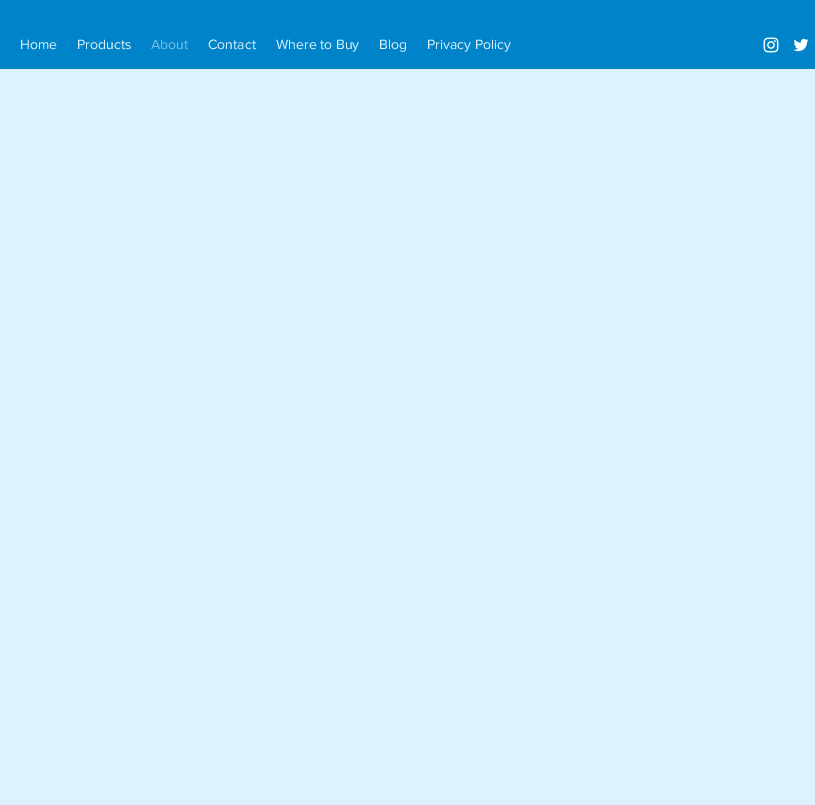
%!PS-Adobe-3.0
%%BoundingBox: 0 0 815 805
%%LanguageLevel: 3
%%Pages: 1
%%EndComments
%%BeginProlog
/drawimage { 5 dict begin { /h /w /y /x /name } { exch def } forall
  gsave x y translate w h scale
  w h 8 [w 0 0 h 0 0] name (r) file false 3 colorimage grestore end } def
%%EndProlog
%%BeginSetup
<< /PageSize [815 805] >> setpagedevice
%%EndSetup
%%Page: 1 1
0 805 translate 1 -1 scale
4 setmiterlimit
0.863 0.949 0.992 setrgbcolor
0 0 815 805 rectfill
0 0.514 0.784 setrgbcolor
0 0 815 69 rectfill
(images/1.raw) 763 37 16 16 drawimage
(images/2.raw) 793 38 16 14 drawimage
/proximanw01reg-Regular [14 0 0 -14 0 0] selectfont
0.863 0.949 0.992 setrgbcolor
20 49 moveto (Home) show
77 49 moveto (Products) show
0.455 0.757 0.918 setrgbcolor
151 49 moveto (About) show
0.863 0.949 0.992 setrgbcolor
208 49 moveto (Contact) show
276 49 moveto (Where to Buy) show
379 49 moveto (Blog) show
427 49 moveto (Privacy Policy) show
showpage
%%EOF
